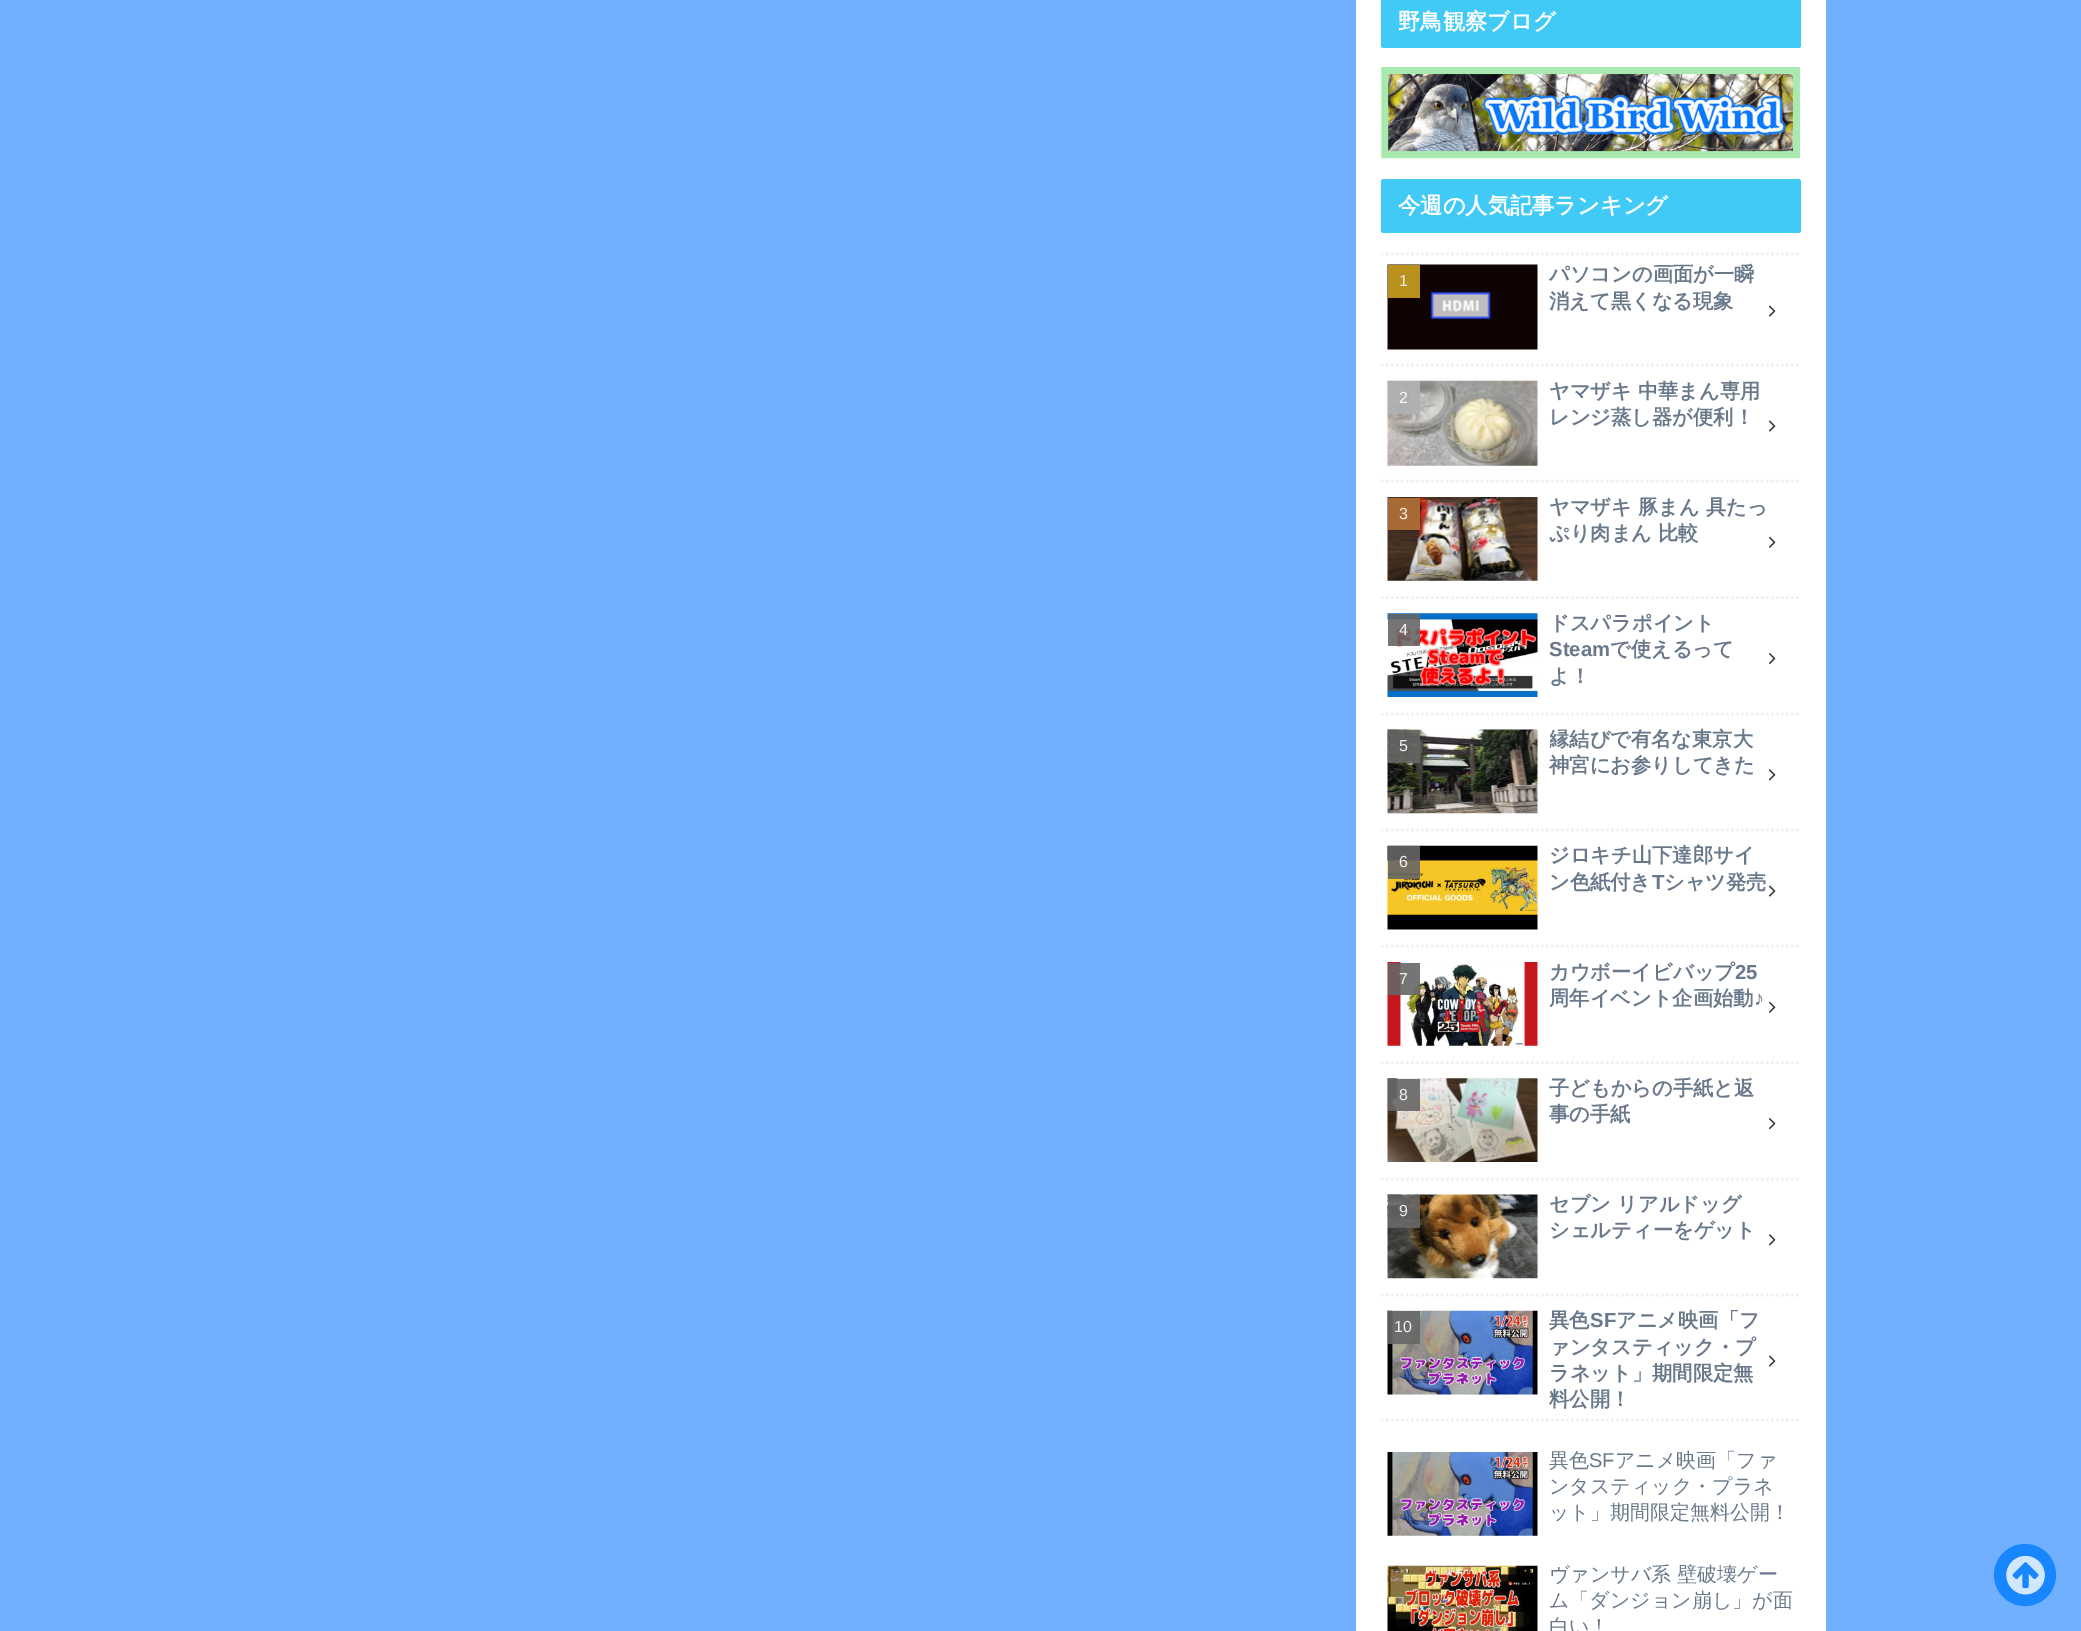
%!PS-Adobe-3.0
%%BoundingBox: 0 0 2081 1631
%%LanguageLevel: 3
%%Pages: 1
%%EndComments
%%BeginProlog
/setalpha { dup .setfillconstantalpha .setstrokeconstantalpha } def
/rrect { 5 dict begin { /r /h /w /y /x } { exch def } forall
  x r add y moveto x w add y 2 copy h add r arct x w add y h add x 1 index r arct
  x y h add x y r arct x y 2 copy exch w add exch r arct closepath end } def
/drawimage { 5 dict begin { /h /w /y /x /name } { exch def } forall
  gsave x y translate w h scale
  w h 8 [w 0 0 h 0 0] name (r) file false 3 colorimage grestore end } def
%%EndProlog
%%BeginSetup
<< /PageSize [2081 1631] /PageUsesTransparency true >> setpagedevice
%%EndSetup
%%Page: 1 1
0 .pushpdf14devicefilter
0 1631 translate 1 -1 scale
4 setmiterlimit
0.443 0.69 1 setrgbcolor
0 0 2081 1631 rectfill
1 setgray
1356 0 470 1631 rectfill
0.259 0.792 0.969 setrgbcolor
1381 -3 420 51 2.5 rrect fill
(images/1.raw) 1381 67 419 92 drawimage
1381 179 420 54 2.5 rrect fill
0.933 setgray
2.5 setlinewidth
[2.5 2.5] 0 setdash
newpath 1381 254 moveto 1801 254 lineto stroke
newpath 1381 365 moveto 1801 365 lineto stroke
(images/2.raw) 1387 264 151 86 drawimage
0.725 0.569 0.11 setrgbcolor
1388 265 32 33 rectfill
(images/3.raw) 1768 305 8 12 drawimage
0.933 setgray
newpath 1381 481 moveto 1801 481 lineto stroke
(images/4.raw) 1387 380 151 86 drawimage
0.9 setalpha
0.694 0.694 0.702 setrgbcolor
1388 381 32 33 rectfill
1 setalpha
(images/3.raw) 1768 420 8 12 drawimage
0.933 setgray
newpath 1381 597.5 moveto 1801 597.5 lineto stroke
(images/5.raw) 1387 497 151 84 drawimage
0.9 setalpha
0.702 0.439 0.212 setrgbcolor
1388 498 32 32 rectfill
1 setalpha
(images/6.raw) 1768 536 8 12 drawimage
0.933 setgray
newpath 1381 714 moveto 1801 714 lineto stroke
(images/7.raw) 1387 613 151 84 drawimage
0.9 setalpha
0.4 setgray
1388 614 32 32 rectfill
1 setalpha
(images/8.raw) 1768 653 8 12 drawimage
0.933 setgray
newpath 1381 830 moveto 1801 830 lineto stroke
(images/9.raw) 1387 729 151 85 drawimage
0.9 setalpha
0.4 setgray
1388 730 32 33 rectfill
1 setalpha
(images/10.raw) 1768 769 8 12 drawimage
0.933 setgray
newpath 1381 946 moveto 1801 946 lineto stroke
(images/11.raw) 1387 845 151 85 drawimage
0.9 setalpha
0.4 setgray
1388 846 32 33 rectfill
1 setalpha
(images/3.raw) 1768 885 8 12 drawimage
0.933 setgray
newpath 1381 1062.5 moveto 1801 1062.5 lineto stroke
(images/12.raw) 1387 962 151 84 drawimage
0.9 setalpha
0.4 setgray
1388 963 32 32 rectfill
1 setalpha
(images/6.raw) 1768 1001 8 12 drawimage
0.933 setgray
newpath 1381 1179 moveto 1801 1179 lineto stroke
(images/13.raw) 1387 1078 151 84 drawimage
0.9 setalpha
0.4 setgray
1388 1079 32 32 rectfill
1 setalpha
(images/8.raw) 1768 1118 8 12 drawimage
0.933 setgray
newpath 1381 1295 moveto 1801 1295 lineto stroke
(images/14.raw) 1387 1194 151 85 drawimage
0.9 setalpha
0.4 setgray
1388 1195 32 33 rectfill
1 setalpha
(images/10.raw) 1768 1234 8 12 drawimage
0.933 setgray
newpath 1381 1420 moveto 1801 1420 lineto stroke
(images/15.raw) 1387 1310 151 85 drawimage
0.9 setalpha
0.4 setgray
1388 1311 32 33 rectfill
1 setalpha
(images/3.raw) 1768 1355 8 12 drawimage
(images/16.raw) 1387 1452 151 84 drawimage
(images/17.raw) 1387 1565 151 66 drawimage
0.09 0.525 1 setrgbcolor
newpath 2025 1575 31 0 360 arc closepath fill
(images/18.raw) 2006 1555 39 40 drawimage
/WenQuanYiZenHei-Bold [22.25 0 0 -22.25 0 0] selectfont
1 setgray
1398 29 moveto (野鳥観察ブログ) show
1398 213 moveto (今週の人気記事ランキング) show
/LiberationSans-Regular [16 0 0 -16 0 0] selectfont
0.906 0.902 0.902 setrgbcolor
1399 286 moveto (1) show
/WenQuanYiZenHei-Bold [20.25 0 0 -20.25 0 0] selectfont
0.412 0.471 0.541 setrgbcolor
1549 281 moveto (パソコンの画面が一瞬) show
1549 308 moveto (消えて黒くなる現象) show
/LiberationSans-Regular [16 0 0 -16 0 0] selectfont
0.969 setgray
1399 403 moveto (2) show
/WenQuanYiZenHei-Bold [20.25 0 0 -20.25 0 0] selectfont
0.412 0.471 0.541 setrgbcolor
1549 398 moveto (ヤマザキ 中華まん専用) show
1549 424 moveto (レンジ蒸し器が便利！) show
/LiberationSans-Regular [16 0 0 -16 0 0] selectfont
0.965 0.941 0.922 setrgbcolor
1399 519 moveto (3) show
/WenQuanYiZenHei-Bold [20.25 0 0 -20.25 0 0] selectfont
0.412 0.471 0.541 setrgbcolor
1549 514 moveto (ヤマザキ 豚まん 具たっ) show
1549 540 moveto (ぷり肉まん 比較) show
/LiberationSans-Regular [16 0 0 -16 0 0] selectfont
0.965 0.941 0.922 setrgbcolor
1399 635 moveto (4) show
/WenQuanYiZenHei-Bold [20.25 0 0 -20.25 0 0] selectfont
0.412 0.471 0.541 setrgbcolor
1549 630 moveto (ドスパラポイント) show
/LiberationSans-Bold [20.25 0 0 -20.25 0 0] selectfont
1549 656 moveto (Steam) show
/WenQuanYiZenHei-Bold [20.25 0 0 -20.25 0 0] selectfont
1610 656 moveto (で使えるって) show
1549 683 moveto (よ！) show
/LiberationSans-Regular [16 0 0 -16 0 0] selectfont
0.937 setgray
1399 751 moveto (5) show
gsave
1550 726 218 53 rectclip
/WenQuanYiZenHei-Bold [20.25 0 0 -20.25 0 0] selectfont
0.412 0.471 0.541 setrgbcolor
1549 746 moveto (縁結びで有名な東京大) show
grestore
/WenQuanYiZenHei-Bold [20.25 0 0 -20.25 0 0] selectfont
0.412 0.471 0.541 setrgbcolor
1549 772 moveto (神宮にお参りしてきた) show
/LiberationSans-Regular [16 0 0 -16 0 0] selectfont
0.937 setgray
1399 867 moveto (6) show
/WenQuanYiZenHei-Bold [20.25 0 0 -20.25 0 0] selectfont
0.412 0.471 0.541 setrgbcolor
1549 862 moveto (ジロキチ山下達郎サイ) show
1549 889 moveto (ン色紙付き) show
/LiberationSans-Bold [20.25 0 0 -20.25 0 0] selectfont
1652 889 moveto (T) show
/WenQuanYiZenHei-Bold [20.25 0 0 -20.25 0 0] selectfont
1664 889 moveto (シャツ発売) show
/LiberationSans-Regular [16 0 0 -16 0 0] selectfont
0.937 setgray
1399 984 moveto (7) show
/WenQuanYiZenHei-Bold [20.25 0 0 -20.25 0 0] selectfont
0.412 0.471 0.541 setrgbcolor
1549 979 moveto (カウボーイビバップ) show
/LiberationSans-Bold [20.25 0 0 -20.25 0 0] selectfont
1735 979 moveto (25) show
/WenQuanYiZenHei-Bold [20.25 0 0 -20.25 0 0] selectfont
1549 1005 moveto (周年イベント企画始動) show
/LiberationSans-Bold [20.25 0 0 -20.25 0 0] selectfont
1754 1005 moveto (♪) show
/LiberationSans-Regular [16 0 0 -16 0 0] selectfont
0.937 setgray
1399 1100 moveto (8) show
/WenQuanYiZenHei-Bold [20.25 0 0 -20.25 0 0] selectfont
0.412 0.471 0.541 setrgbcolor
1549 1095 moveto (子どもからの手紙と返) show
1549 1121 moveto (事の手紙) show
/LiberationSans-Regular [16 0 0 -16 0 0] selectfont
0.937 setgray
1399 1216 moveto (9) show
/WenQuanYiZenHei-Bold [20.25 0 0 -20.25 0 0] selectfont
0.412 0.471 0.541 setrgbcolor
1549 1211 moveto (セブン リアルドッグ) show
1549 1237 moveto (シェルティーをゲット) show
/LiberationSans-Regular [16 0 0 -16 0 0] selectfont
0.937 setgray
1394 1332 moveto (10) show
/WenQuanYiZenHei-Bold [20.25 0 0 -20.25 0 0] selectfont
0.412 0.471 0.541 setrgbcolor
1549 1327 moveto (異色) show
/LiberationSans-Bold [20.25 0 0 -20.25 0 0] selectfont
1590 1327 moveto (SF) show
/WenQuanYiZenHei-Bold [20.25 0 0 -20.25 0 0] selectfont
1616 1327 moveto (アニメ映画「フ) show
1549 1354 moveto (ァンタスティック・プ) show
1549 1380 moveto (ラネット」期間限定無) show
1549 1406 moveto (料公開！) show
/WenQuanYiZenHei-Medium [20 0 0 -20 0 0] selectfont
1549 1467 moveto (異色) show
/LiberationSans-Regular [20 0 0 -20 0 0] selectfont
1589 1467 moveto (SF) show
/WenQuanYiZenHei-Medium [20 0 0 -20 0 0] selectfont
1615 1467 moveto (アニメ映画「ファ) show
1549 1493 moveto (ンタスティック・プラネ) show
1549 1519 moveto (ット」期間限定無料公開！) show
1549 1581 moveto (ヴァンサバ系 壁破壊ゲー) show
1549 1607 moveto (ム「ダンジョン崩し」が面) show
1549 1633 moveto (白い！) show
.poppdf14devicefilter showpage
%%EOF
